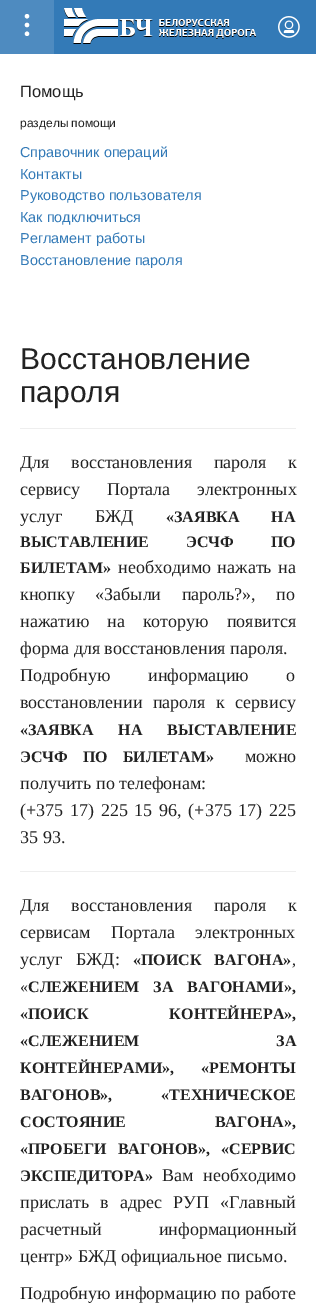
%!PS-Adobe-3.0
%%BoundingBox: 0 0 316 1315
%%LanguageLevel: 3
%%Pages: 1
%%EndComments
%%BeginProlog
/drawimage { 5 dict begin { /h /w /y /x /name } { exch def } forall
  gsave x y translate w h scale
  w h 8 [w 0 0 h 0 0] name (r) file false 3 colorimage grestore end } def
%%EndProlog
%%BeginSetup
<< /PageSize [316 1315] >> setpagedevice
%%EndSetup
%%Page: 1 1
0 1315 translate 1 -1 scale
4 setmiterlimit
1 setgray
0 0 316 1315 rectfill
0.2 0.478 0.718 setrgbcolor
54 0 262 54 rectfill
0.306 0.545 0.753 setrgbcolor
0 0 54 54 rectfill
1 setgray
newpath 27 16.2 2.2 0 360 arc closepath fill
newpath 27 25 2.2 0 360 arc closepath fill
newpath 27 33.8 2.2 0 360 arc closepath fill
(images/1.raw) 63 8 193 36 drawimage
(images/2.raw) 278 16 22 22 drawimage
0.933 setgray
20 428 276 1 rectfill
20 871 276 1 rectfill
/LiberationSans-Regular [16.5 0 0 -16.5 0 0] selectfont
0.133 setgray
20 97 moveto (Помощь) show
/LiberationSans-Regular [12 0 0 -12 0 0] selectfont
20 127 moveto (разделы помощи) show
/LiberationSans-Regular [14.4 0 0 -14.4 0 0] selectfont
0.2 0.478 0.718 setrgbcolor
20 157 moveto (Справочник операций) show
20 179 moveto (Контакты) show
20 200 moveto (Руководство пользователя) show
20 222 moveto (Как подключиться) show
20 243 moveto (Регламент работы) show
20 265 moveto (Вoсстановление пароля) show
/LiberationSans-Regular [30 0 0 -30 0 0] selectfont
0.133 setgray
20 369 moveto (Вoсстановление) show
20 402 moveto (пароля) show
/LiberationSerif-Regular [18 0 0 -18 0 0] selectfont
20 468 moveto 17 0 32 (Для восстановления пароля к) widthshow
20 495 moveto 22 0 32 (сервису Портала электронных) widthshow
20 522 moveto 28 0 32 (услуг БЖД) widthshow
/LiberationSerif-Bold [16 0 0 -16 0 0] selectfont
166 522 moveto 28 0 32 («ЗАЯВКА НА) widthshow
20 547 moveto 33 0 32 (ВЫСТАВЛЕНИЕ ЭСЧФ ПО) widthshow
20 573 moveto (БИЛЕТАМ») show
/LiberationSerif-Regular [18 0 0 -18 0 0] selectfont
118 573 moveto 2 0 32 (необходимо нажать на) widthshow
20 600 moveto 16 0 32 (кнопку «Забыли пароль?», по) widthshow
20 627 moveto 13.5 0 32 (нажатию на которую появится) widthshow
20 654 moveto (форма для восстановления пароля.) show
20 681 moveto 33 0 32 (Подробную информацию о) widthshow
20 708 moveto 6 0 32 (восстановлении пароля к сервису) widthshow
/LiberationSerif-Bold [16 0 0 -16 0 0] selectfont
20 735 moveto 21 0 32 («ЗАЯВКА НА ВЫСТАВЛЕНИЕ) widthshow
20 762 moveto 11 0 32 (ЭСЧФ ПО БИЛЕТАМ») widthshow
/LiberationSerif-Regular [18 0 0 -18 0 0] selectfont
245 762 moveto (можно) show
20 789 moveto (получить по телефонам:) show
20 816 moveto 2.25 0 32 (\(+375 17\) 225 15 96, \(+375 17\) 225) widthshow
20 843 moveto (35 93.) show
20 911 moveto 17 0 32 (Для восстановления пароля к) widthshow
20 938 moveto 16 0 32 (сервисам Портала электронных) widthshow
20 965 moveto 9 0 32 (услуг БЖД:) widthshow
/LiberationSerif-Bold [16 0 0 -16 0 0] selectfont
133 965 moveto 9 0 32 («ПОИСК ВАГОНА») widthshow
/LiberationSerif-Regular [16 0 0 -16 0 0] selectfont
292 965 moveto (,) show
20 992 moveto («) show
/LiberationSerif-Bold [16 0 0 -16 0 0] selectfont
28 992 moveto 10 0 32 (СЛЕЖЕНИЕМ ЗА ВАГОНАМИ»,) widthshow
20 1019 moveto 77 0 32 («ПОИСК КОНТЕЙНЕРА»,) widthshow
20 1046 moveto 133 0 32 («СЛЕЖЕНИЕМ ЗА) widthshow
20 1073 moveto 23 0 32 (КОНТЕЙНЕРАМИ», «РЕМОНТЫ) widthshow
20 1100 moveto 45 0 32 (ВАГОНОВ», «ТЕХНИЧЕСКОЕ) widthshow
20 1127 moveto 85 0 32 (СОСТОЯНИЕ ВАГОНА»,) widthshow
20 1154 moveto 7 0 32 («ПРОБЕГИ ВАГОНОВ», «СЕРВИС) widthshow
20 1181 moveto (ЭКСПЕДИТОРА») show
/LiberationSerif-Regular [18 0 0 -18 0 0] selectfont
162 1181 moveto 5 0 32 (Вам необходимо) widthshow
20 1208 moveto 6.5 0 32 (прислать в адрес РУП «Главный) widthshow
20 1235 moveto 53 0 32 (расчетный информационный) widthshow
20 1262 moveto (центр» БЖД официальное письмо.) show
20 1299 moveto 0.5 0 32 (Подробную информацию по работе) widthshow
showpage
%%EOF
